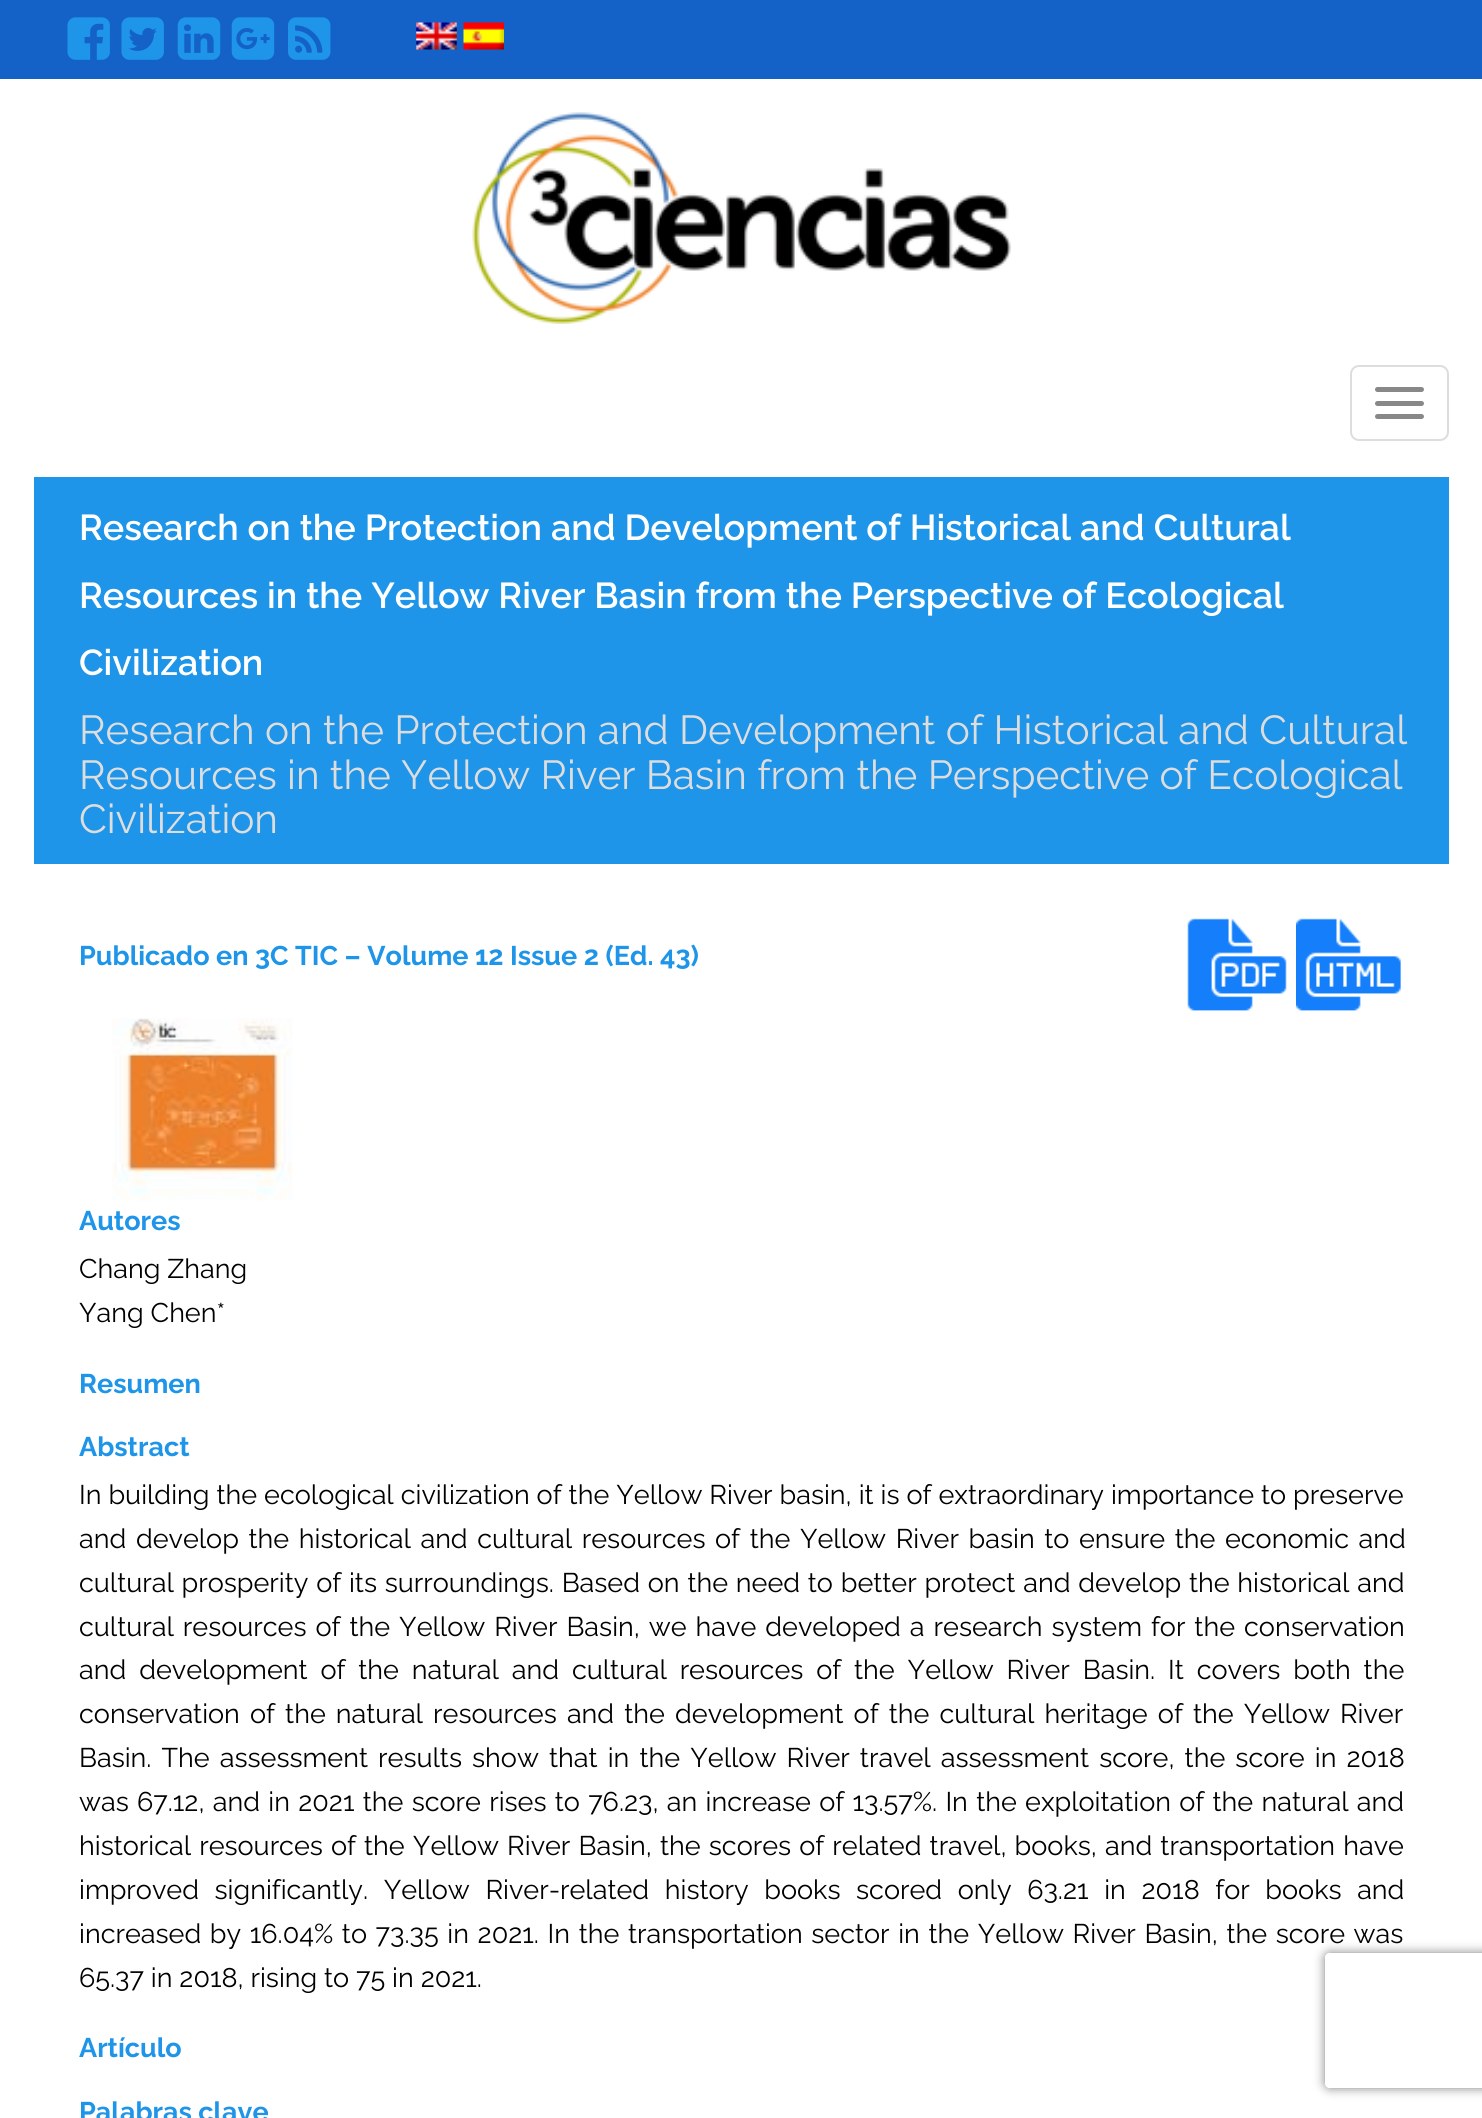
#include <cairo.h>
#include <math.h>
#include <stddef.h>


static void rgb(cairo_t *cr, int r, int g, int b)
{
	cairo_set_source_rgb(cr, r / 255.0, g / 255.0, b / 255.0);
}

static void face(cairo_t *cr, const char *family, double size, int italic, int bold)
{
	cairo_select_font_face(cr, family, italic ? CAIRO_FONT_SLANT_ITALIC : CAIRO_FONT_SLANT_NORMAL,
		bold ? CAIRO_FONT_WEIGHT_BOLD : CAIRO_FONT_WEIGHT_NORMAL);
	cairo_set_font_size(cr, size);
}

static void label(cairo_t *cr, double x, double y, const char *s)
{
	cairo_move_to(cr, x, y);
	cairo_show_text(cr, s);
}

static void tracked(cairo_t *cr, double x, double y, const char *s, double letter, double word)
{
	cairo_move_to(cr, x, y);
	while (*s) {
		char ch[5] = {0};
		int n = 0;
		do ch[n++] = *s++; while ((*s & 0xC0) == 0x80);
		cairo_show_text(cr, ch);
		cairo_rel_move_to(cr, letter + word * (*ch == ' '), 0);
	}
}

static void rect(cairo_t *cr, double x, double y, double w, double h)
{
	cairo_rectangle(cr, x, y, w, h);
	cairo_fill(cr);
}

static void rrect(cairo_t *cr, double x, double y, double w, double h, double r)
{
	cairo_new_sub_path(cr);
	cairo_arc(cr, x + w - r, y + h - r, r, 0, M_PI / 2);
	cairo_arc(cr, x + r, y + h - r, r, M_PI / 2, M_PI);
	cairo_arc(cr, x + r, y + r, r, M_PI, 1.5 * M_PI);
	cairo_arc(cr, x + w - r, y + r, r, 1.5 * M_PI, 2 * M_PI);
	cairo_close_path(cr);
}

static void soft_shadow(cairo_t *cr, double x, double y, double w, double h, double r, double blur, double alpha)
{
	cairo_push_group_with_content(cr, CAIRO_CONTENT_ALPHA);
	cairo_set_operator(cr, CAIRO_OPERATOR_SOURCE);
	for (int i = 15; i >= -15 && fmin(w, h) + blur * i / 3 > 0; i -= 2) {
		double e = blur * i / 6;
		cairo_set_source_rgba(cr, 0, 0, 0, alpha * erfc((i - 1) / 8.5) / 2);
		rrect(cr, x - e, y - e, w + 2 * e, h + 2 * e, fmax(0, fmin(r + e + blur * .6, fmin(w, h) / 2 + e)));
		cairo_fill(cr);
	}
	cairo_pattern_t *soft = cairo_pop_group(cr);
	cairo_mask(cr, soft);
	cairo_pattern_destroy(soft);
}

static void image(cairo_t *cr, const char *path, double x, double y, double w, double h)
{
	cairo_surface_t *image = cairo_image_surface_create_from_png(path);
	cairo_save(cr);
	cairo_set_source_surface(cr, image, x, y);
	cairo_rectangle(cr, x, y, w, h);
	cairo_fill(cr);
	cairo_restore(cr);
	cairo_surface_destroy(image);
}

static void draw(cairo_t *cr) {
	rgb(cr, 255, 255, 255);
	cairo_paint(cr);
	rgb(cr, 20, 98, 200);
	rect(cr, 0, 0, 1482, 79);
	image(cr, "image0.png", 67, 17, 43, 43);
	image(cr, "image1.png", 121, 17, 43, 43);
	image(cr, "image2.png", 177, 17, 44, 43);
	image(cr, "image3.png", 231, 17, 44, 43);
	image(cr, "image4.png", 288, 17, 43, 43);
	image(cr, "image5.png", 416, 22, 41, 28);
	image(cr, "image6.png", 463, 22, 41, 28);
	image(cr, "image7.png", 472, 112, 539, 212);
	rrect(cr, 1351, 366, 97, 74, 8);
	rgb(cr, 221, 221, 221);
	cairo_stroke(cr);
	rgb(cr, 136, 136, 136);
	rrect(cr, 1375, 387, 49, 5, 2.5);
	cairo_fill(cr);
	rrect(cr, 1375, 401, 49, 5, 2.5);
	cairo_fill(cr);
	rrect(cr, 1375, 414, 49, 5, 2.5);
	cairo_fill(cr);
	rgb(cr, 30, 149, 232);
	rect(cr, 34, 477, 1415, 387);
	face(cr, "Raleway SemiBold", 36, 0, 0);
	rgb(cr, 255, 255, 255);
	label(cr, 79, 540, "Research on the Protection and Development of Historical and Cultural");
	label(cr, 79, 608, "Resources in the Yellow River Basin from the Perspective of Ecological");
	label(cr, 79, 675, "Civilization");
	face(cr, "Raleway", 40.5, 0, 0);
	rgb(cr, 221, 221, 221);
	label(cr, 79, 744, "Research on the Protection and Development of Historical and Cultural");
	label(cr, 79, 789, "Resources in the Yellow River Basin from the Perspective of Ecological");
	label(cr, 79, 833, "Civilization");
	face(cr, "Raleway", 27, 0, 1);
	rgb(cr, 30, 149, 232);
	label(cr, 79, 965, "Publicado en 3C TIC – Volume 12 Issue 2 (Ed. 43)");
	image(cr, "image8.png", 1187, 918, 100, 93);
	image(cr, "image9.png", 1296, 918, 105, 93);
	image(cr, "image10.png", 112, 1018, 181, 183);
	label(cr, 79, 1230, "Autores");
	face(cr, "Raleway", 27, 0, 0);
	rgb(cr, 0, 0, 0);
	label(cr, 79, 1278, "Chang Zhang");
	label(cr, 79, 1322, "Yang Chen*");
	face(cr, "Raleway", 27, 0, 1);
	rgb(cr, 30, 149, 232);
	label(cr, 79, 1393, "Resumen");
	label(cr, 79, 1456, "Abstract");
	face(cr, "Raleway", 27, 0, 0);
	rgb(cr, 0, 0, 0);
	tracked(cr, 79, 1504, "In building the ecological civilization of the Yellow River basin, it is of extraordinary importance to preserve", 0, 0.1);
	tracked(cr, 79, 1548, "and develop the historical and cultural resources of the Yellow River basin to ensure the economic and", 0, 2.75);
	tracked(cr, 79, 1592, "cultural prosperity of its surroundings. Based on the need to better protect and develop the historical and", 0, 0.9);
	tracked(cr, 79, 1636, "cultural resources of the Yellow River Basin, we have developed a research system for the conservation", 0, 2.1);
	tracked(cr, 79, 1679, "and development of the natural and cultural resources of the Yellow River Basin. It covers both the", 0, 6);
	tracked(cr, 79, 1723, "conservation of the natural resources and the development of the cultural heritage of the Yellow River", 0, 3.25);
	tracked(cr, 79, 1767, "Basin. The assessment results show that in the Yellow River travel assessment score, the score in 2018", 0, 3.25);
	tracked(cr, 79, 1811, "was 67.12, and in 2021 the score rises to 76.23, an increase of 13.57%. In the exploitation of the natural and", 0, 1.4);
	tracked(cr, 79, 1855, "historical resources of the Yellow River Basin, the scores of related travel, books, and transportation have", 0, 1.25);
	tracked(cr, 79, 1899, "improved significantly. Yellow River-related history books scored only 63.21 in 2018 for books and", 0, 8.75);
	tracked(cr, 79, 1943, "increased by 16.04% to 73.35 in 2021. In the transportation sector in the Yellow River Basin, the score was", 0, 1.75);
	label(cr, 79, 1987, "65.37 in 2018, rising to 75 in 2021.");
	face(cr, "Raleway", 27, 0, 1);
	rgb(cr, 30, 149, 232);
	label(cr, 79, 2057, "Artículo");
	label(cr, 79, 2121, "Palabras clave");
	cairo_save(cr);
	cairo_set_fill_rule(cr, CAIRO_FILL_RULE_EVEN_ODD);
	cairo_new_path(cr);
	cairo_move_to(cr, 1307, 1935);
	cairo_line_to(cr, 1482, 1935);
	cairo_line_to(cr, 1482, 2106);
	cairo_line_to(cr, 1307, 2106);
	cairo_close_path(cr);
	cairo_move_to(cr, 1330, 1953);
	cairo_line_to(cr, 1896, 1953);
	cairo_curve_to(cr, 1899, 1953, 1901, 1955, 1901, 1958);
	cairo_line_to(cr, 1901, 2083);
	cairo_curve_to(cr, 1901, 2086, 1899, 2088, 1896, 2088);
	cairo_line_to(cr, 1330, 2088);
	cairo_curve_to(cr, 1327, 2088, 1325, 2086, 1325, 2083);
	cairo_line_to(cr, 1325, 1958);
	cairo_curve_to(cr, 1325, 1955, 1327, 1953, 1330, 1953);
	cairo_close_path(cr);
	cairo_clip(cr);
	rgb(cr, 128, 128, 128);
	soft_shadow(cr, 1325, 1953, 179, 135, 5, 5.5, 1);
	cairo_restore(cr);
}

int main(void) {
	cairo_surface_t *surface = cairo_image_surface_create(CAIRO_FORMAT_RGB24, 1482, 2118);
	cairo_t *cr = cairo_create(surface);
	cairo_font_options_t *options = cairo_font_options_create();
	cairo_font_options_set_hint_metrics(options, CAIRO_HINT_METRICS_OFF);
	cairo_font_options_set_hint_style(options, CAIRO_HINT_STYLE_NONE);
	cairo_set_font_options(cr, options);
	cairo_set_miter_limit(cr, 4);
	draw(cr);
	cairo_surface_write_to_png(surface, "render.png");
	cairo_font_options_destroy(options);
	cairo_destroy(cr);
	cairo_surface_destroy(surface);
	return 0;
}
